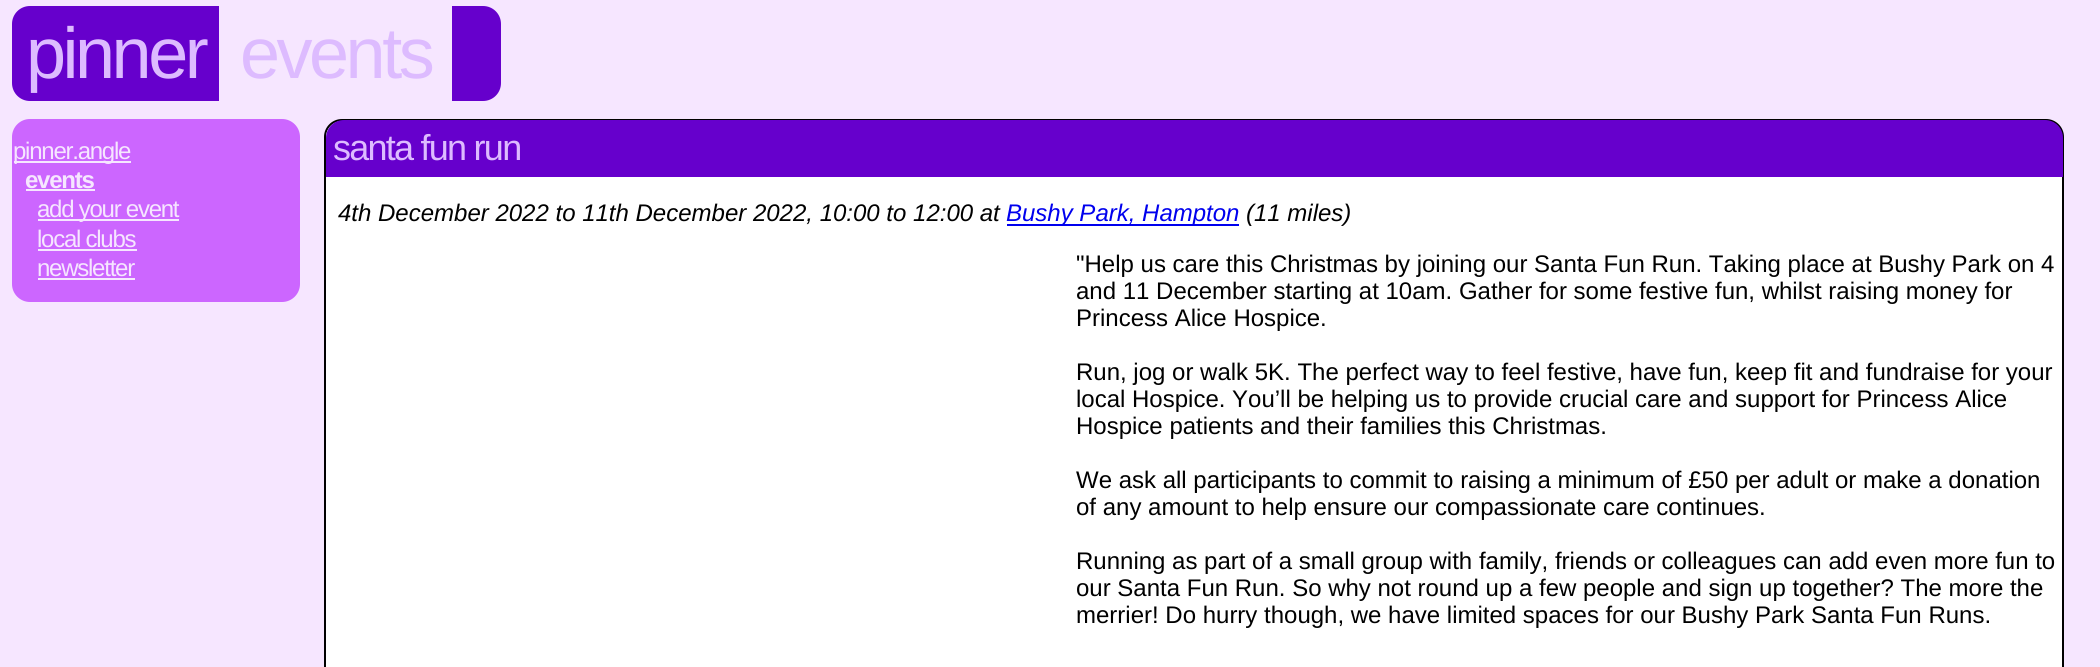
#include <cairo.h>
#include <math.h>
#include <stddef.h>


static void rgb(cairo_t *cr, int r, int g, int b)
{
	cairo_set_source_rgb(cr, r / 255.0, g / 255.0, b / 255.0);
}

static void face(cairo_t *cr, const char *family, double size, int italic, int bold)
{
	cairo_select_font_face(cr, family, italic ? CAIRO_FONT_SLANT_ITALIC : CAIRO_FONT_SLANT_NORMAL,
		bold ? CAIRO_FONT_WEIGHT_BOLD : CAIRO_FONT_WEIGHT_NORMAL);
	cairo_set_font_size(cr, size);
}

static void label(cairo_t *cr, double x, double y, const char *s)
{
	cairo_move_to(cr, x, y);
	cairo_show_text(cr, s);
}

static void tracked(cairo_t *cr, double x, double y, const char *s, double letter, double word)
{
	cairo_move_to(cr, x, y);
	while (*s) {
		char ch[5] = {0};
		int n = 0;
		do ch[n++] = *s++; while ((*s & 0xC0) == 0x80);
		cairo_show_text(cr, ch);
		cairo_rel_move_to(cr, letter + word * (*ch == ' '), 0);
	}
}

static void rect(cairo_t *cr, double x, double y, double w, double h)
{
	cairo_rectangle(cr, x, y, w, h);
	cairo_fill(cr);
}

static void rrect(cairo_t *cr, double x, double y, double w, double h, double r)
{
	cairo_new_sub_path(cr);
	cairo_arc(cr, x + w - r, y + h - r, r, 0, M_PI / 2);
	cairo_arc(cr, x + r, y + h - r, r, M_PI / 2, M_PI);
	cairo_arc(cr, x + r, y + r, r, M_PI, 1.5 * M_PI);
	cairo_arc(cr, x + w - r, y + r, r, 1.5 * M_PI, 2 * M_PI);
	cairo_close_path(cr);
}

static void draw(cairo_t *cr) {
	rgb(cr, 246, 230, 255);
	cairo_paint(cr);
	rgb(cr, 102, 0, 204);
	cairo_new_path(cr);
	cairo_move_to(cr, 30, 6);
	cairo_line_to(cr, 219, 6);
	cairo_line_to(cr, 219, 101);
	cairo_line_to(cr, 30, 101);
	cairo_curve_to(cr, 20, 101, 12, 93, 12, 83);
	cairo_line_to(cr, 12, 24);
	cairo_curve_to(cr, 12, 14, 20, 6, 30, 6);
	cairo_close_path(cr);
	cairo_fill(cr);
	face(cr, "Liberation Sans", 72, 0, 0);
	rgb(cr, 221, 187, 255);
	tracked(cr, 26, 78, "pinner", -3.5, 0);
	tracked(cr, 240, 78, "events", -3.5, 0);
	rgb(cr, 102, 0, 204);
	cairo_new_path(cr);
	cairo_move_to(cr, 452, 6);
	cairo_line_to(cr, 483, 6);
	cairo_curve_to(cr, 493, 6, 501, 14, 501, 24);
	cairo_line_to(cr, 501, 83);
	cairo_curve_to(cr, 501, 93, 493, 101, 483, 101);
	cairo_line_to(cr, 452, 101);
	cairo_close_path(cr);
	cairo_fill(cr);
	rgb(cr, 204, 102, 255);
	rrect(cr, 12, 119, 288, 183, 18);
	cairo_fill(cr);
	rgb(cr, 246, 230, 255);
	rect(cr, 14, 161, 117, 2);
	face(cr, "Liberation Sans", 24, 0, 0);
	tracked(cr, 13, 159, "pinner.angle", -1.25, 0);
	face(cr, "Liberation Sans", 24, 0, 1);
	tracked(cr, 25, 188, "events", -1.25, 0);
	rect(cr, 26, 189, 69, 2);
	rect(cr, 38, 219, 141, 2);
	face(cr, "Liberation Sans", 24, 0, 0);
	tracked(cr, 37, 217, "add your event", -1.25, 0);
	tracked(cr, 37, 247, "local clubs", -1.25, 0);
	rect(cr, 38, 249, 99, 2);
	tracked(cr, 37, 276, "newsletter", -1.25, 0);
	rect(cr, 38, 278, 97, 2);
	rgb(cr, 255, 255, 255);
	rrect(cr, 325, 120, 1738, 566, 17);
	cairo_fill_preserve(cr);
	rgb(cr, 0, 0, 0);
	cairo_stroke(cr);
	rgb(cr, 102, 0, 204);
	cairo_new_path(cr);
	cairo_move_to(cr, 344, 120);
	cairo_line_to(cr, 2045, 120);
	cairo_curve_to(cr, 2055, 120, 2063, 128, 2063, 138);
	cairo_line_to(cr, 2063, 177);
	cairo_line_to(cr, 326, 177);
	cairo_line_to(cr, 326, 138);
	cairo_curve_to(cr, 326, 128, 334, 120, 344, 120);
	cairo_close_path(cr);
	cairo_fill(cr);
	face(cr, "Liberation Sans", 36, 0, 0);
	rgb(cr, 221, 187, 255);
	tracked(cr, 333, 160, "santa fun run", -1.75, 0);
	face(cr, "Liberation Sans", 24, 1, 0);
	rgb(cr, 0, 0, 0);
	label(cr, 338, 221, "4th December 2022 to 11th December 2022, 10:00 to 12:00 at");
	rgb(cr, 0, 0, 238);
	rect(cr, 1007, 224, 232, 2);
	label(cr, 1006, 221, "Bushy Park, Hampton");
	rgb(cr, 0, 0, 0);
	label(cr, 1246, 221, "(11 miles)");
	face(cr, "Liberation Sans", 24, 0, 0);
	label(cr, 1076, 272, "\"Help us care this Christmas by joining our Santa Fun Run. Taking place at Bushy Park on 4");
	label(cr, 1076, 299, "and 11 December starting at 10am. Gather for some festive fun, whilst raising money for");
	label(cr, 1076, 326, "Princess Alice Hospice.");
	label(cr, 1076, 380, "Run, jog or walk 5K. The perfect way to feel festive, have fun, keep fit and fundraise for your");
	label(cr, 1076, 407, "local Hospice. You’ll be helping us to provide crucial care and support for Princess Alice");
	label(cr, 1076, 434, "Hospice patients and their families this Christmas.");
	label(cr, 1076, 488, "We ask all participants to commit to raising a minimum of £50 per adult or make a donation");
	label(cr, 1076, 515, "of any amount to help ensure our compassionate care continues.");
	label(cr, 1076, 569, "Running as part of a small group with family, friends or colleagues can add even more fun to");
	label(cr, 1076, 596, "our Santa Fun Run. So why not round up a few people and sign up together? The more the");
	label(cr, 1076, 623, "merrier! Do hurry though, we have limited spaces for our Bushy Park Santa Fun Runs.");
}

int main(void) {
	cairo_surface_t *surface = cairo_image_surface_create(CAIRO_FORMAT_RGB24, 2100, 667);
	cairo_t *cr = cairo_create(surface);
	cairo_font_options_t *options = cairo_font_options_create();
	cairo_font_options_set_hint_metrics(options, CAIRO_HINT_METRICS_OFF);
	cairo_font_options_set_hint_style(options, CAIRO_HINT_STYLE_NONE);
	cairo_set_font_options(cr, options);
	cairo_set_miter_limit(cr, 4);
	draw(cr);
	cairo_surface_write_to_png(surface, "render.png");
	cairo_font_options_destroy(options);
	cairo_destroy(cr);
	cairo_surface_destroy(surface);
	return 0;
}
